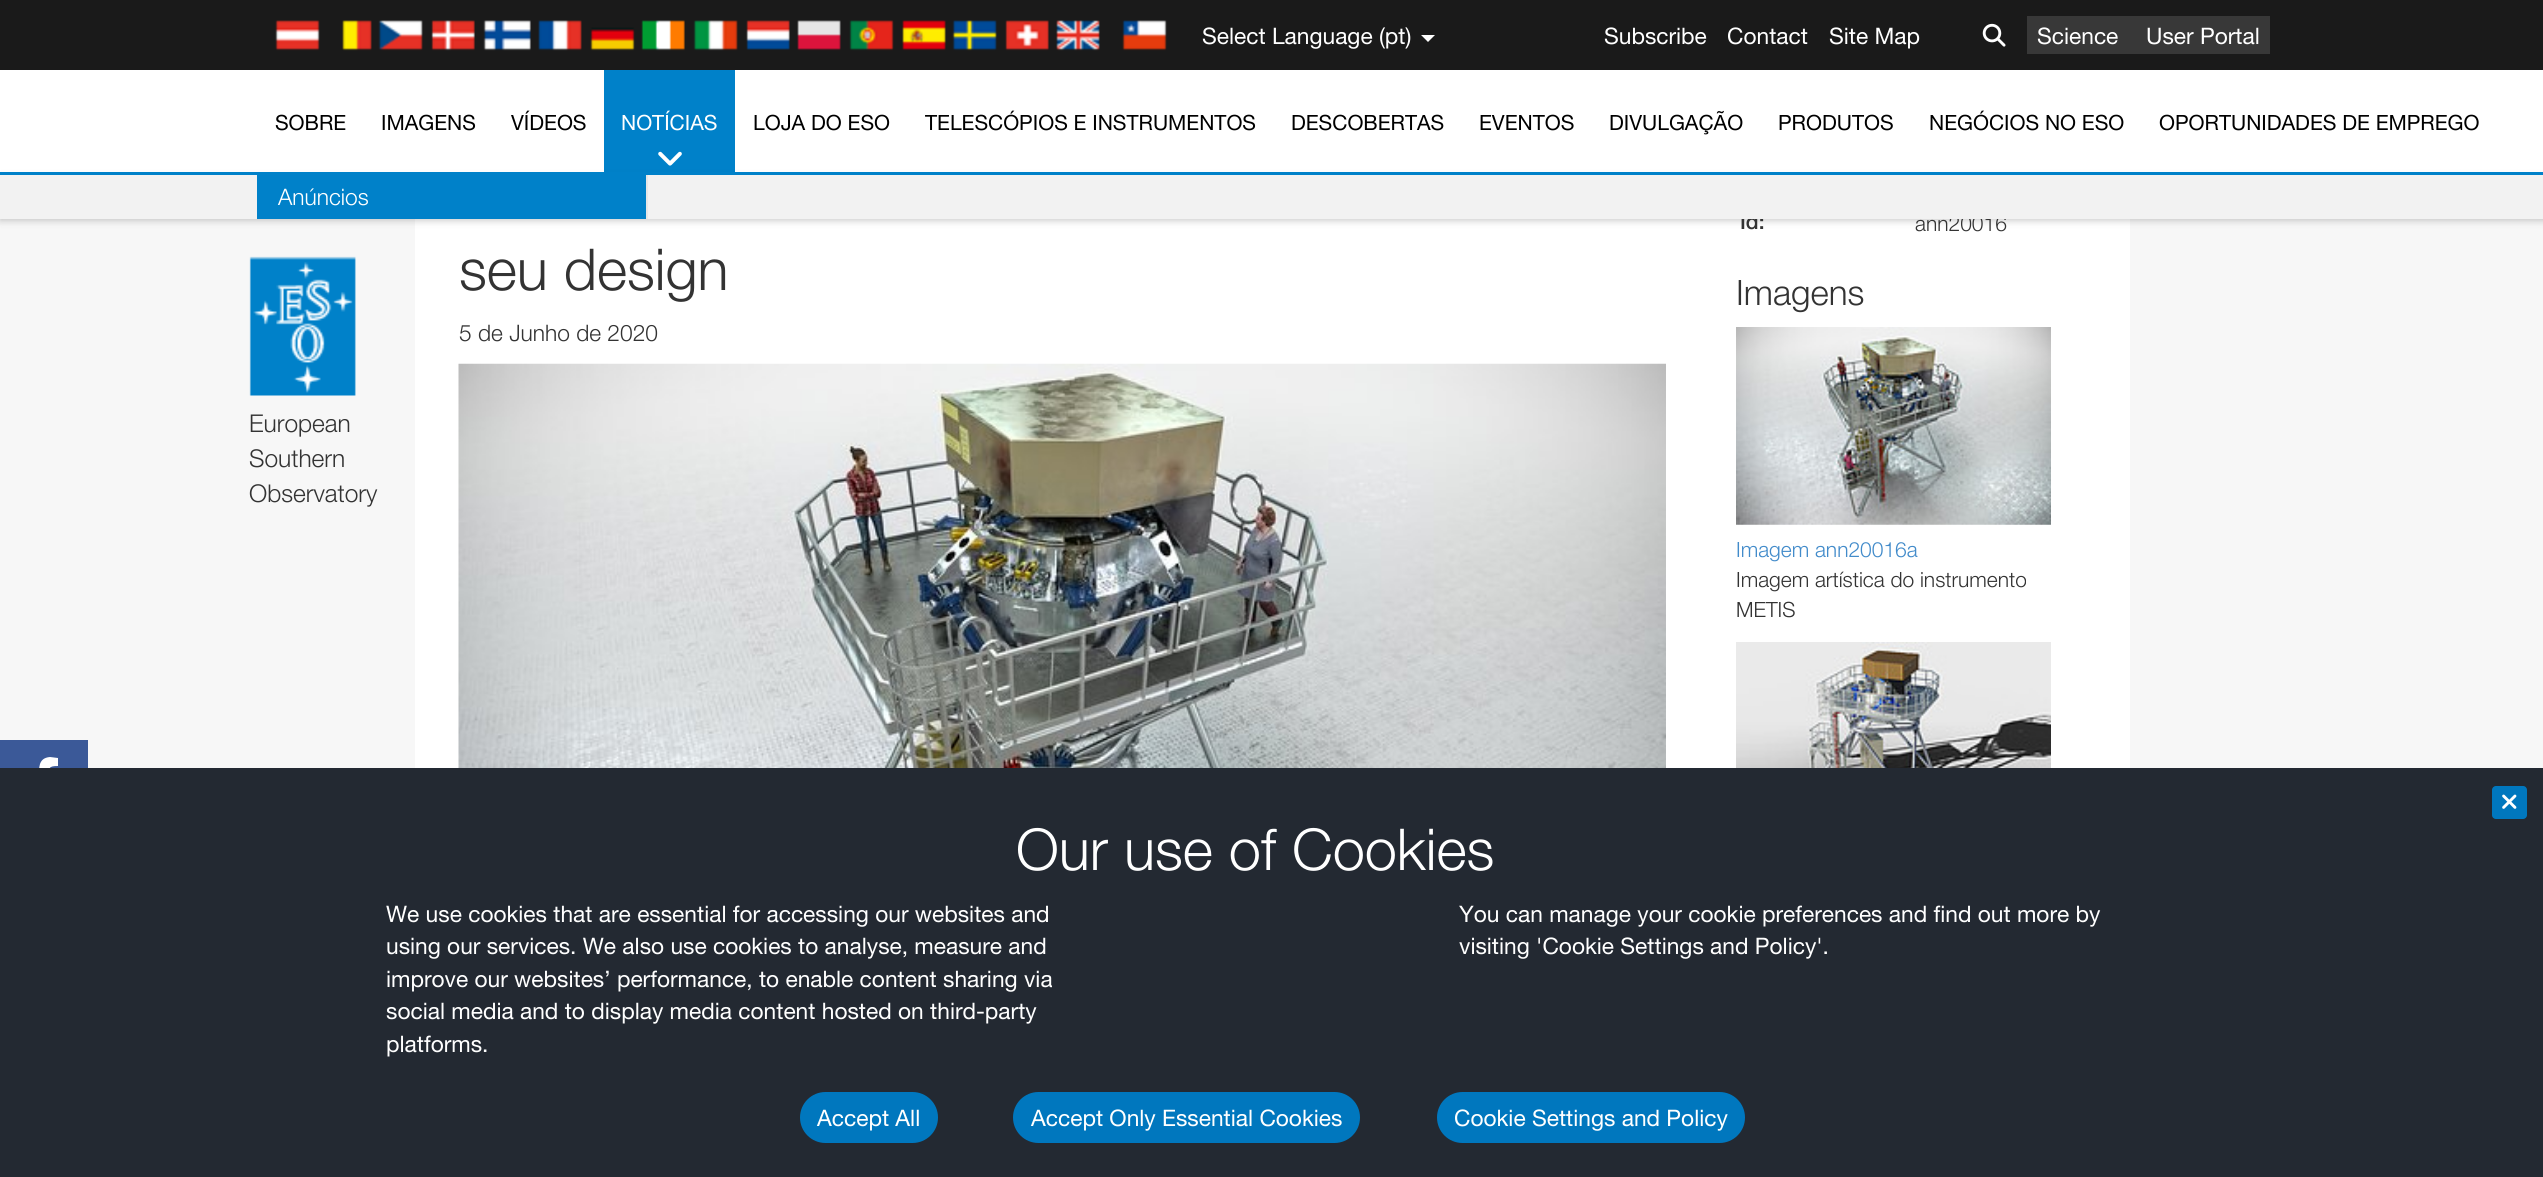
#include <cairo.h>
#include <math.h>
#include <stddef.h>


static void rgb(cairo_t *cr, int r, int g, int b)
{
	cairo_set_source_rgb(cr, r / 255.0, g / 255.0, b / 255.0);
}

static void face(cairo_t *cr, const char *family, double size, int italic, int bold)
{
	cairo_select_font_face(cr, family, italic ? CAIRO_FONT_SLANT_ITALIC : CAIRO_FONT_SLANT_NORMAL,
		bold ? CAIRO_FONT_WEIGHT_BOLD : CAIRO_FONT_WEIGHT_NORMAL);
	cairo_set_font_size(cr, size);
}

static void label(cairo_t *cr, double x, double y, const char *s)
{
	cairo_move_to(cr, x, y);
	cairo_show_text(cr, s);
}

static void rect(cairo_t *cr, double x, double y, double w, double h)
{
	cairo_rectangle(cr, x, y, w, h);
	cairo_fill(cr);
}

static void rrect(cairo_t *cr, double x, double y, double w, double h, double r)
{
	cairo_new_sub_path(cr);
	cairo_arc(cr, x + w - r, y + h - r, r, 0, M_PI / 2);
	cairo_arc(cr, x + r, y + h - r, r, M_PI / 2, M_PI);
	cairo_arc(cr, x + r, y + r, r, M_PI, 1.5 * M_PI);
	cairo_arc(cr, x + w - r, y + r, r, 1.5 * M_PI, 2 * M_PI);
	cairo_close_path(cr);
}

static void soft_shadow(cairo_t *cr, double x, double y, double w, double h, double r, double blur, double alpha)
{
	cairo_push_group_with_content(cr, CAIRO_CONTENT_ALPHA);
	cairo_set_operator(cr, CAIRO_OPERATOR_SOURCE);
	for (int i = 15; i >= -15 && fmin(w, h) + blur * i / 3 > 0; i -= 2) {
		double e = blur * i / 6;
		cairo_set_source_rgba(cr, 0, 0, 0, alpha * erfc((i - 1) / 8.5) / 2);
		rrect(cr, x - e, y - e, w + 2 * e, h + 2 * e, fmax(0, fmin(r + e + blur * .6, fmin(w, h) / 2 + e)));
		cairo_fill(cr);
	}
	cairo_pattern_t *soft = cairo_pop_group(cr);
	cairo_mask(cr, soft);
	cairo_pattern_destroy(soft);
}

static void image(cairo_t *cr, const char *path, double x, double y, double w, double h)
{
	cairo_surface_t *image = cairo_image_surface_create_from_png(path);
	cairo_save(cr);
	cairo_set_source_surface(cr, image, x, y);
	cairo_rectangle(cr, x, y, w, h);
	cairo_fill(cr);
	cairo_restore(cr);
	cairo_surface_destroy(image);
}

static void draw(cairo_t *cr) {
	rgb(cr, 247, 247, 247);
	cairo_paint(cr);
	rgb(cr, 26, 26, 26);
	rect(cr, 0, 0, 2543, 70);
	image(cr, "image0.png", 275, 20, 45, 31);
	image(cr, "image1.png", 342, 20, 30, 31);
	image(cr, "image2.png", 378, 20, 45, 31);
	image(cr, "image3.png", 431, 20, 44, 31);
	image(cr, "image4.png", 483, 20, 48, 31);
	image(cr, "image5.png", 538, 20, 44, 31);
	image(cr, "image6.png", 590, 27, 45, 24);
	image(cr, "image7.png", 641, 20, 44, 31);
	image(cr, "image8.png", 693, 20, 45, 31);
	image(cr, "image9.png", 746, 20, 44, 30);
	image(cr, "image10.png", 797, 20, 44, 31);
	image(cr, "image11.png", 849, 20, 45, 31);
	image(cr, "image12.png", 902, 20, 44, 31);
	image(cr, "image13.png", 952, 20, 45, 31);
	image(cr, "image14.png", 1005, 20, 44, 31);
	image(cr, "image15.png", 1056, 20, 44, 31);
	image(cr, "image16.png", 1122, 20, 45, 31);
	face(cr, "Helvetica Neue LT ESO", 22.75, 0, 0);
	rgb(cr, 255, 255, 255);
	label(cr, 1202, 44, "Select Language (pt)");
	cairo_new_path(cr);
	cairo_move_to(cr, 1421, 35);
	cairo_line_to(cr, 1435, 35);
	cairo_line_to(cr, 1428, 42);
	cairo_close_path(cr);
	cairo_fill(cr);
	label(cr, 1604, 44, "Subscribe");
	label(cr, 1727, 44, "Contact");
	label(cr, 1829, 44, "Site Map");
	image(cr, "image17.png", 1982, 23, 24, 24);
	rgb(cr, 56, 56, 56);
	rect(cr, 2027, 16, 243, 38);
	rgb(cr, 255, 255, 255);
	label(cr, 2037, 44, "Science");
	label(cr, 2146, 44, "User Portal");
	rect(cr, 0, 70, 2543, 102);
	rgb(cr, 0, 129, 201);
	rect(cr, 604, 70, 131, 102);
	face(cr, "Helvetica Neue LT ESO", 21, 0, 0);
	rgb(cr, 255, 255, 255);
	label(cr, 621, 130, "NOTÍCIAS");
	image(cr, "image18.png", 658, 151, 24, 15);
	rect(cr, 415, 219, 1715, 549);
	rgb(cr, 0, 0, 0);
	soft_shadow(cr, 0, 177, 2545, 44, 0, 3.5, 0.2);
	rgb(cr, 0, 129, 201);
	cairo_new_path(cr);
	cairo_move_to(cr, 0, 172);
	cairo_line_to(cr, 0, 175);
	cairo_line_to(cr, 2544, 175);
	cairo_line_to(cr, 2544, 215);
	cairo_line_to(cr, 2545, 215);
	cairo_line_to(cr, 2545, 172);
	cairo_close_path(cr);
	cairo_fill(cr);
	face(cr, "Helvetica Neue LT ESO Medium", 21, 0, 0);
	rgb(cr, 51, 51, 51);
	label(cr, 1740, 229, "Id:");
	face(cr, "Helvetica Neue LT ESO Light", 21, 0, 0);
	label(cr, 1915, 231, "ann20016");
	rgb(cr, 242, 242, 242);
	rect(cr, 0, 175, 2543, 44);
	rgb(cr, 231, 231, 231);
	rect(cr, 646, 175, 2, 44);
	rgb(cr, 0, 129, 201);
	rect(cr, 257, 175, 389, 44);
	face(cr, "Helvetica Neue LT ESO Light", 22.75, 0, 0);
	rgb(cr, 255, 255, 255);
	label(cr, 278, 205, "Anúncios");
	face(cr, "Helvetica Neue LT ESO", 21, 0, 0);
	rgb(cr, 0, 0, 0);
	label(cr, 275, 130, "SOBRE");
	label(cr, 381, 130, "IMAGENS");
	label(cr, 511, 130, "VÍDEOS");
	label(cr, 753, 130, "LOJA DO ESO");
	label(cr, 925, 130, "TELESCÓPIOS E INSTRUMENTOS");
	label(cr, 1291, 130, "DESCOBERTAS");
	label(cr, 1479, 130, "EVENTOS");
	label(cr, 1609, 130, "DIVULGAÇÃO");
	label(cr, 1778, 130, "PRODUTOS");
	label(cr, 1929, 130, "NEGÓCIOS NO ESO");
	label(cr, 2159, 130, "OPORTUNIDADES DE EMPREGO");
	rgb(cr, 59, 89, 152);
	rect(cr, 0, 740, 88, 28);
	rgb(cr, 255, 255, 255);
	cairo_new_path(cr);
	cairo_move_to(cr, 57, 787);
	cairo_line_to(cr, 58, 777);
	cairo_line_to(cr, 49, 777);
	cairo_curve_to(cr, 49, 768, 48, 766, 58, 766);
	cairo_line_to(cr, 58, 758);
	cairo_line_to(cr, 50, 757);
	cairo_curve_to(cr, 38, 758, 39, 768, 39, 777);
	cairo_line_to(cr, 30, 777);
	cairo_line_to(cr, 30, 787);
	cairo_line_to(cr, 39, 787);
	cairo_line_to(cr, 39, 810);
	cairo_line_to(cr, 49, 810);
	cairo_line_to(cr, 49, 787);
	cairo_close_path(cr);
	cairo_fill(cr);
	image(cr, "image19.png", 249, 256, 107, 140);
	face(cr, "Helvetica Neue LT ESO Light", 24.5, 0, 0);
	rgb(cr, 51, 51, 51);
	label(cr, 249, 432, "European");
	label(cr, 249, 467, "Southern");
	label(cr, 249, 502, "Observatory");
	face(cr, "Helvetica Neue LT ESO Light", 57.75, 0, 0);
	label(cr, 459, 290, "seu design");
	face(cr, "Helvetica Neue LT ESO Light", 22.75, 0, 0);
	label(cr, 459, 341, "5 de Junho de 2020");
	image(cr, "image20.png", 458, 363, 1208, 405);
	face(cr, "Helvetica Neue LT ESO Light", 35, 0, 0);
	label(cr, 1736, 305, "Imagens");
	image(cr, "image21.png", 1736, 327, 315, 198);
	face(cr, "Helvetica Neue LT ESO Light", 21, 0, 0);
	rgb(cr, 66, 139, 202);
	label(cr, 1736, 557, "Imagem ann20016a");
	rgb(cr, 51, 51, 51);
	label(cr, 1736, 587, "Imagem artística do instrumento");
	label(cr, 1736, 617, "METIS");
	image(cr, "image22.png", 1736, 642, 315, 126);
	rgb(cr, 35, 41, 50);
	rect(cr, 0, 768, 2543, 409);
	rgb(cr, 0, 119, 190);
	rrect(cr, 2492, 786, 35, 33, 4);
	cairo_fill(cr);
	image(cr, "image23.png", 2502, 794, 15, 15);
	face(cr, "Helvetica Neue LT ESO Light", 57.75, 0, 0);
	rgb(cr, 255, 255, 255);
	label(cr, 1016, 870, "Our use of Cookies");
	face(cr, "Helvetica Neue LT ESO", 22.75, 0, 0);
	label(cr, 386, 922, "We use cookies that are essential for accessing our websites and");
	label(cr, 386, 954, "using our services. We also use cookies to analyse, measure and");
	label(cr, 386, 987, "improve our websites’ performance, to enable content sharing via");
	label(cr, 386, 1019, "social media and to display media content hosted on third-party");
	label(cr, 386, 1052, "platforms.");
	label(cr, 1459, 922, "You can manage your cookie preferences and find out more by");
	label(cr, 1459, 954, "visiting 'Cookie Settings and Policy'.");
	rgb(cr, 0, 119, 190);
	rrect(cr, 800, 1092, 138, 51, 25.5);
	cairo_fill(cr);
	rgb(cr, 255, 255, 255);
	label(cr, 817, 1126, "Accept All");
	rgb(cr, 0, 119, 190);
	rrect(cr, 1013, 1092, 347, 51, 25.5);
	cairo_fill(cr);
	rgb(cr, 255, 255, 255);
	label(cr, 1031, 1126, "Accept Only Essential Cookies");
	rgb(cr, 0, 119, 190);
	rrect(cr, 1437, 1092, 308, 51, 25.5);
	cairo_fill(cr);
	rgb(cr, 255, 255, 255);
	label(cr, 1454, 1126, "Cookie Settings and Policy");
}

int main(void) {
	cairo_surface_t *surface = cairo_image_surface_create(CAIRO_FORMAT_RGB24, 2543, 1177);
	cairo_t *cr = cairo_create(surface);
	cairo_font_options_t *options = cairo_font_options_create();
	cairo_font_options_set_hint_metrics(options, CAIRO_HINT_METRICS_OFF);
	cairo_font_options_set_hint_style(options, CAIRO_HINT_STYLE_NONE);
	cairo_set_font_options(cr, options);
	cairo_set_miter_limit(cr, 4);
	draw(cr);
	cairo_surface_write_to_png(surface, "render.png");
	cairo_font_options_destroy(options);
	cairo_destroy(cr);
	cairo_surface_destroy(surface);
	return 0;
}
